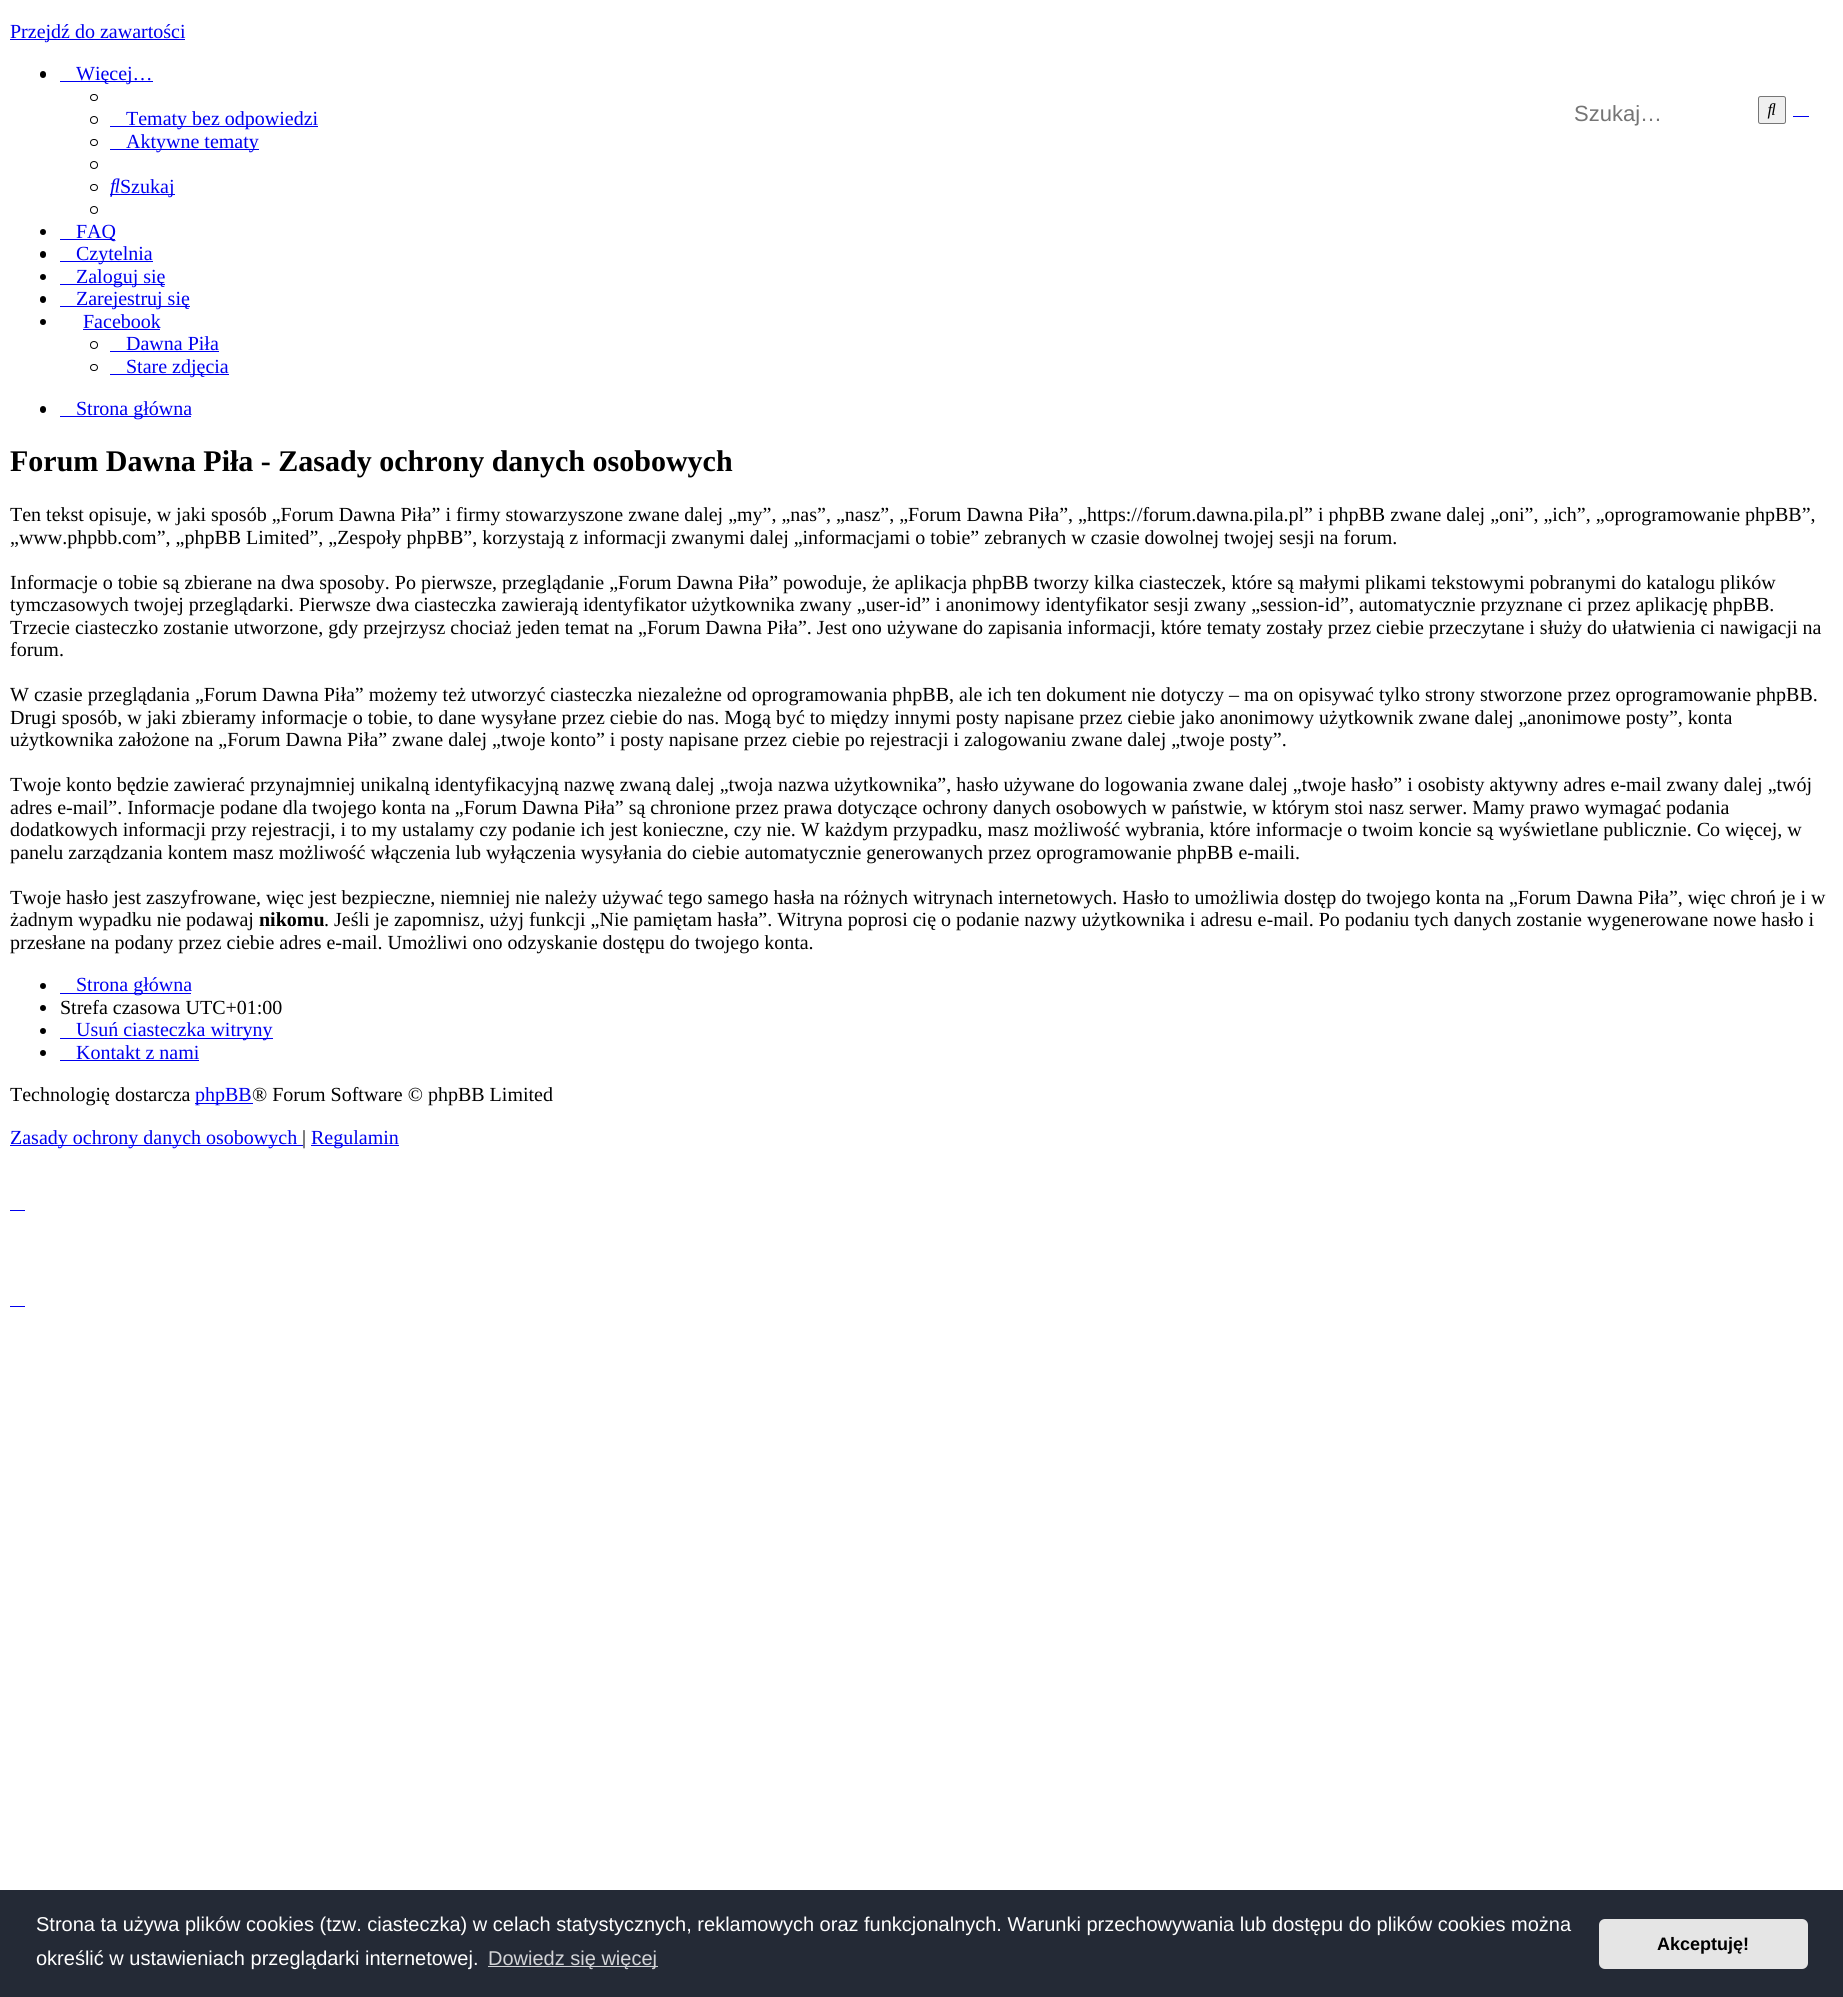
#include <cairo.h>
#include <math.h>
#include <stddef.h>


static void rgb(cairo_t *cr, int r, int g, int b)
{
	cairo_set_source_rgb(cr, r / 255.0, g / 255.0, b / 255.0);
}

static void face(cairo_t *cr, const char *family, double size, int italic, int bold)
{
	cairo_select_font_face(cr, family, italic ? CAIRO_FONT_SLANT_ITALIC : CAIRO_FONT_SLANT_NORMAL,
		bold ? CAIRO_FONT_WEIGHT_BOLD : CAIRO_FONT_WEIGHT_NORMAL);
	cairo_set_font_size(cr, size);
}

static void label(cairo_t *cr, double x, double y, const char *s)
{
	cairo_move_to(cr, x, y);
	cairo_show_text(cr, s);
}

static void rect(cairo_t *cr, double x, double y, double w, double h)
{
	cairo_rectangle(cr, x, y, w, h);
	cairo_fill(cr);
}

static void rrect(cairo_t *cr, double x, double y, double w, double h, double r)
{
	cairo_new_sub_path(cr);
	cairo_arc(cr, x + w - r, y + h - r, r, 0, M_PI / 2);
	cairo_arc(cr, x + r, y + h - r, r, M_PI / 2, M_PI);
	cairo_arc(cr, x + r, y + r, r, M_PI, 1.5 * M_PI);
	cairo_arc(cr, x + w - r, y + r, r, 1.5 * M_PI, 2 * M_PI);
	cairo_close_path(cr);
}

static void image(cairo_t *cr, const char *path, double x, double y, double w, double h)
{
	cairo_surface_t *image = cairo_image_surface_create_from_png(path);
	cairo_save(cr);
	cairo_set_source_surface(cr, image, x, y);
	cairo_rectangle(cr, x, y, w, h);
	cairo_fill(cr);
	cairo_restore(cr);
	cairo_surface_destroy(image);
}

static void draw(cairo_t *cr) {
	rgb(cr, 255, 255, 255);
	cairo_paint(cr);
	rgb(cr, 0, 0, 238);
	rect(cr, 10, 39, 175, 1);
	face(cr, "Liberation Serif", 20, 0, 0);
	label(cr, 10, 38, "Przejdź do zawartości");
	face(cr, "Liberation Sans", 22, 0, 0);
	rgb(cr, 117, 117, 117);
	label(cr, 1574, 121, "Szukaj…");
	rgb(cr, 239, 239, 239);
	rrect(cr, 1758.5, 96.5, 27, 27, 2);
	cairo_fill_preserve(cr);
	rgb(cr, 118, 118, 118);
	cairo_set_line_width(cr, 1);
	cairo_stroke(cr);
	image(cr, "image0.png", 1767, 103, 9, 16);
	rgb(cr, 0, 0, 238);
	rect(cr, 1793, 116, 16, 1);
	rgb(cr, 0, 0, 0);
	rrect(cr, 40, 71, 6, 7, 3);
	cairo_fill(cr);
	rgb(cr, 0, 0, 238);
	rect(cr, 60, 81, 93, 1);
	face(cr, "Liberation Serif", 20, 0, 0);
	label(cr, 76, 80, "Więcej…");
	rrect(cr, 90.5, 94.5, 7, 6, 3);
	rgb(cr, 0, 0, 0);
	cairo_stroke(cr);
	cairo_arc(cr, 94, 120, 3.5, 0, 2 * M_PI);
	cairo_stroke(cr);
	rgb(cr, 0, 0, 238);
	rect(cr, 110, 126, 208, 1);
	label(cr, 126, 125, "Tematy bez odpowiedzi");
	rrect(cr, 90.5, 139.5, 7, 6, 3);
	rgb(cr, 0, 0, 0);
	cairo_stroke(cr);
	rgb(cr, 0, 0, 238);
	rect(cr, 110, 149, 149, 1);
	label(cr, 126, 148, "Aktywne tematy");
	cairo_new_path(cr);
	cairo_arc(cr, 94, 165, 3.5, 0, 2 * M_PI);
	rgb(cr, 0, 0, 0);
	cairo_stroke(cr);
	rrect(cr, 90.5, 184.5, 7, 6, 3);
	cairo_stroke(cr);
	rgb(cr, 0, 0, 238);
	rect(cr, 110, 194, 65, 1);
	image(cr, "image1.png", 110, 178, 10, 19);
	label(cr, 120, 193, "Szukaj");
	cairo_new_path(cr);
	cairo_arc(cr, 94, 210, 3.5, 0, 2 * M_PI);
	rgb(cr, 0, 0, 0);
	cairo_stroke(cr);
	cairo_arc(cr, 43, 232, 3, 0, 2 * M_PI);
	cairo_fill(cr);
	rgb(cr, 0, 0, 238);
	rect(cr, 60, 239, 55, 1);
	label(cr, 76, 238, "FAQ");
	rgb(cr, 0, 0, 0);
	rrect(cr, 40, 251, 6, 7, 3);
	cairo_fill(cr);
	rgb(cr, 0, 0, 238);
	rect(cr, 60, 261, 93, 1);
	label(cr, 76, 260, "Czytelnia");
	rgb(cr, 0, 0, 0);
	cairo_new_path(cr);
	cairo_arc(cr, 43, 277, 3, 0, 2 * M_PI);
	cairo_fill(cr);
	rgb(cr, 0, 0, 238);
	rect(cr, 60, 284, 105, 1);
	label(cr, 76, 283, "Zaloguj się");
	rgb(cr, 0, 0, 0);
	rrect(cr, 40, 296, 6, 7, 3);
	cairo_fill(cr);
	rgb(cr, 0, 0, 238);
	rect(cr, 60, 306, 130, 1);
	label(cr, 76, 305, "Zarejestruj się");
	rgb(cr, 0, 0, 0);
	cairo_new_path(cr);
	cairo_arc(cr, 43, 322, 3, 0, 2 * M_PI);
	cairo_fill(cr);
	rgb(cr, 0, 0, 238);
	label(cr, 83, 328, "Facebook");
	rect(cr, 83, 329, 77, 1);
	cairo_new_path(cr);
	cairo_arc(cr, 94, 345, 3.5, 0, 2 * M_PI);
	rgb(cr, 0, 0, 0);
	cairo_stroke(cr);
	rgb(cr, 0, 0, 238);
	label(cr, 126, 350, "Dawna Piła");
	rect(cr, 110, 351, 109, 1);
	rrect(cr, 90.5, 364.5, 7, 6, 3);
	rgb(cr, 0, 0, 0);
	cairo_stroke(cr);
	rgb(cr, 0, 0, 238);
	rect(cr, 110, 374, 119, 1);
	label(cr, 126, 373, "Stare zdjęcia");
	rgb(cr, 0, 0, 0);
	rrect(cr, 40, 406, 6, 7, 3);
	cairo_fill(cr);
	rgb(cr, 0, 0, 238);
	rect(cr, 60, 416, 131, 1);
	label(cr, 76, 415, "Strona główna");
	face(cr, "Liberation Serif", 30, 0, 1);
	rgb(cr, 0, 0, 0);
	label(cr, 10, 471, "Forum Dawna Piła - Zasady ochrony danych osobowych");
	face(cr, "Liberation Serif", 20, 0, 0);
	label(cr, 10, 521, "Ten tekst opisuje, w jaki sposób „Forum Dawna Piła” i firmy stowarzyszone zwane dalej „my”, „nas”, „nasz”, „Forum Dawna Piła”, „https://forum.dawna.pila.pl” i phpBB zwane dalej „oni”, „ich”, „oprogramowanie phpBB”,");
	label(cr, 10, 544, "„www.phpbb.com”, „phpBB Limited”, „Zespoły phpBB”, korzystają z informacji zwanymi dalej „informacjami o tobie” zebranych w czasie dowolnej twojej sesji na forum.");
	label(cr, 10, 589, "Informacje o tobie są zbierane na dwa sposoby. Po pierwsze, przeglądanie „Forum Dawna Piła” powoduje, że aplikacja phpBB tworzy kilka ciasteczek, które są małymi plikami tekstowymi pobranymi do katalogu plików");
	label(cr, 10, 611, "tymczasowych twojej przeglądarki. Pierwsze dwa ciasteczka zawierają identyfikator użytkownika zwany „user-id” i anonimowy identyfikator sesji zwany „session-id”, automatycznie przyznane ci przez aplikację phpBB.");
	label(cr, 10, 634, "Trzecie ciasteczko zostanie utworzone, gdy przejrzysz chociaż jeden temat na „Forum Dawna Piła”. Jest ono używane do zapisania informacji, które tematy zostały przez ciebie przeczytane i służy do ułatwienia ci nawigacji na");
	label(cr, 10, 656, "forum.");
	label(cr, 10, 701, "W czasie przeglądania „Forum Dawna Piła” możemy też utworzyć ciasteczka niezależne od oprogramowania phpBB, ale ich ten dokument nie dotyczy – ma on opisywać tylko strony stworzone przez oprogramowanie phpBB.");
	label(cr, 10, 724, "Drugi sposób, w jaki zbieramy informacje o tobie, to dane wysyłane przez ciebie do nas. Mogą być to między innymi posty napisane przez ciebie jako anonimowy użytkownik zwane dalej „anonimowe posty”, konta");
	label(cr, 10, 746, "użytkownika założone na „Forum Dawna Piła” zwane dalej „twoje konto” i posty napisane przez ciebie po rejestracji i zalogowaniu zwane dalej „twoje posty”.");
	label(cr, 10, 791, "Twoje konto będzie zawierać przynajmniej unikalną identyfikacyjną nazwę zwaną dalej „twoja nazwa użytkownika”, hasło używane do logowania zwane dalej „twoje hasło” i osobisty aktywny adres e-mail zwany dalej „twój");
	label(cr, 10, 814, "adres e-mail”. Informacje podane dla twojego konta na „Forum Dawna Piła” są chronione przez prawa dotyczące ochrony danych osobowych w państwie, w którym stoi nasz serwer. Mamy prawo wymagać podania");
	label(cr, 10, 836, "dodatkowych informacji przy rejestracji, i to my ustalamy czy podanie ich jest konieczne, czy nie. W każdym przypadku, masz możliwość wybrania, które informacje o twoim koncie są wyświetlane publicznie. Co więcej, w");
	label(cr, 10, 859, "panelu zarządzania kontem masz możliwość włączenia lub wyłączenia wysyłania do ciebie automatycznie generowanych przez oprogramowanie phpBB e-maili.");
	label(cr, 10, 904, "Twoje hasło jest zaszyfrowane, więc jest bezpieczne, niemniej nie należy używać tego samego hasła na różnych witrynach internetowych. Hasło to umożliwia dostęp do twojego konta na „Forum Dawna Piła”, więc chroń je i w");
	label(cr, 10, 926, "żadnym wypadku nie podawaj");
	face(cr, "Liberation Serif", 20, 0, 1);
	label(cr, 259, 926, "nikomu");
	face(cr, "Liberation Serif", 20, 0, 0);
	label(cr, 324, 926, ". Jeśli je zapomnisz, użyj funkcji „Nie pamiętam hasła”. Witryna poprosi cię o podanie nazwy użytkownika i adresu e-mail. Po podaniu tych danych zostanie wygenerowane nowe hasło i");
	label(cr, 10, 949, "przesłane na podany przez ciebie adres e-mail. Umożliwi ono odzyskanie dostępu do twojego konta.");
	cairo_new_path(cr);
	cairo_arc(cr, 43, 986, 3, 0, 2 * M_PI);
	cairo_fill(cr);
	rgb(cr, 0, 0, 238);
	rect(cr, 60, 993, 131, 1);
	label(cr, 76, 991, "Strona główna");
	rgb(cr, 0, 0, 0);
	cairo_new_path(cr);
	cairo_arc(cr, 43, 1008, 3, 0, 2 * M_PI);
	cairo_fill(cr);
	label(cr, 60, 1014, "Strefa czasowa UTC+01:00");
	cairo_new_path(cr);
	cairo_arc(cr, 43, 1031, 3, 0, 2 * M_PI);
	cairo_fill(cr);
	rgb(cr, 0, 0, 238);
	rect(cr, 60, 1038, 213, 1);
	label(cr, 76, 1036, "Usuń ciasteczka witryny");
	rgb(cr, 0, 0, 0);
	cairo_new_path(cr);
	cairo_arc(cr, 43, 1053, 3, 0, 2 * M_PI);
	cairo_fill(cr);
	rgb(cr, 0, 0, 238);
	label(cr, 76, 1059, "Kontakt z nami");
	rect(cr, 60, 1060, 139, 1);
	rgb(cr, 0, 0, 0);
	label(cr, 10, 1101, "Technologię dostarcza");
	rgb(cr, 0, 0, 238);
	rect(cr, 195, 1103, 58, 1);
	label(cr, 195, 1101, "phpBB");
	rgb(cr, 0, 0, 0);
	label(cr, 252, 1101, "® Forum Software © phpBB Limited");
	rgb(cr, 0, 0, 238);
	rect(cr, 10, 1145, 293, 1);
	label(cr, 10, 1144, "Zasady ochrony danych osobowych");
	rgb(cr, 0, 0, 0);
	label(cr, 302, 1144, "|");
	rgb(cr, 0, 0, 238);
	rect(cr, 311, 1145, 88, 1);
	label(cr, 311, 1144, "Regulamin");
	rect(cr, 10, 1210, 15, 1);
	rect(cr, 10, 1306, 15, 1);
	rgb(cr, 36, 42, 54);
	rect(cr, 0, 1890, 1843, 107);
	face(cr, "Liberation Sans", 20, 0, 0);
	rgb(cr, 255, 255, 255);
	label(cr, 36, 1931, "Strona ta używa plików cookies (tzw. ciasteczka) w celach statystycznych, reklamowych oraz funkcjonalnych. Warunki przechowywania lub dostępu do plików cookies można");
	label(cr, 36, 1965, "określić w ustawieniach przeglądarki internetowej.");
	rgb(cr, 211, 212, 215);
	rect(cr, 488, 1966, 170, 1);
	label(cr, 488, 1965, "Dowiedz się więcej");
	rgb(cr, 229, 229, 229);
	rrect(cr, 1599, 1919, 209, 50, 6);
	cairo_fill(cr);
	face(cr, "Liberation Sans", 18, 0, 1);
	rgb(cr, 0, 0, 0);
	label(cr, 1657, 1950, "Akceptuję!");
}

int main(void) {
	cairo_surface_t *surface = cairo_image_surface_create(CAIRO_FORMAT_RGB24, 1843, 1997);
	cairo_t *cr = cairo_create(surface);
	cairo_font_options_t *options = cairo_font_options_create();
	cairo_font_options_set_hint_metrics(options, CAIRO_HINT_METRICS_OFF);
	cairo_font_options_set_hint_style(options, CAIRO_HINT_STYLE_NONE);
	cairo_set_font_options(cr, options);
	cairo_set_miter_limit(cr, 4);
	draw(cr);
	cairo_surface_write_to_png(surface, "render.png");
	cairo_font_options_destroy(options);
	cairo_destroy(cr);
	cairo_surface_destroy(surface);
	return 0;
}
